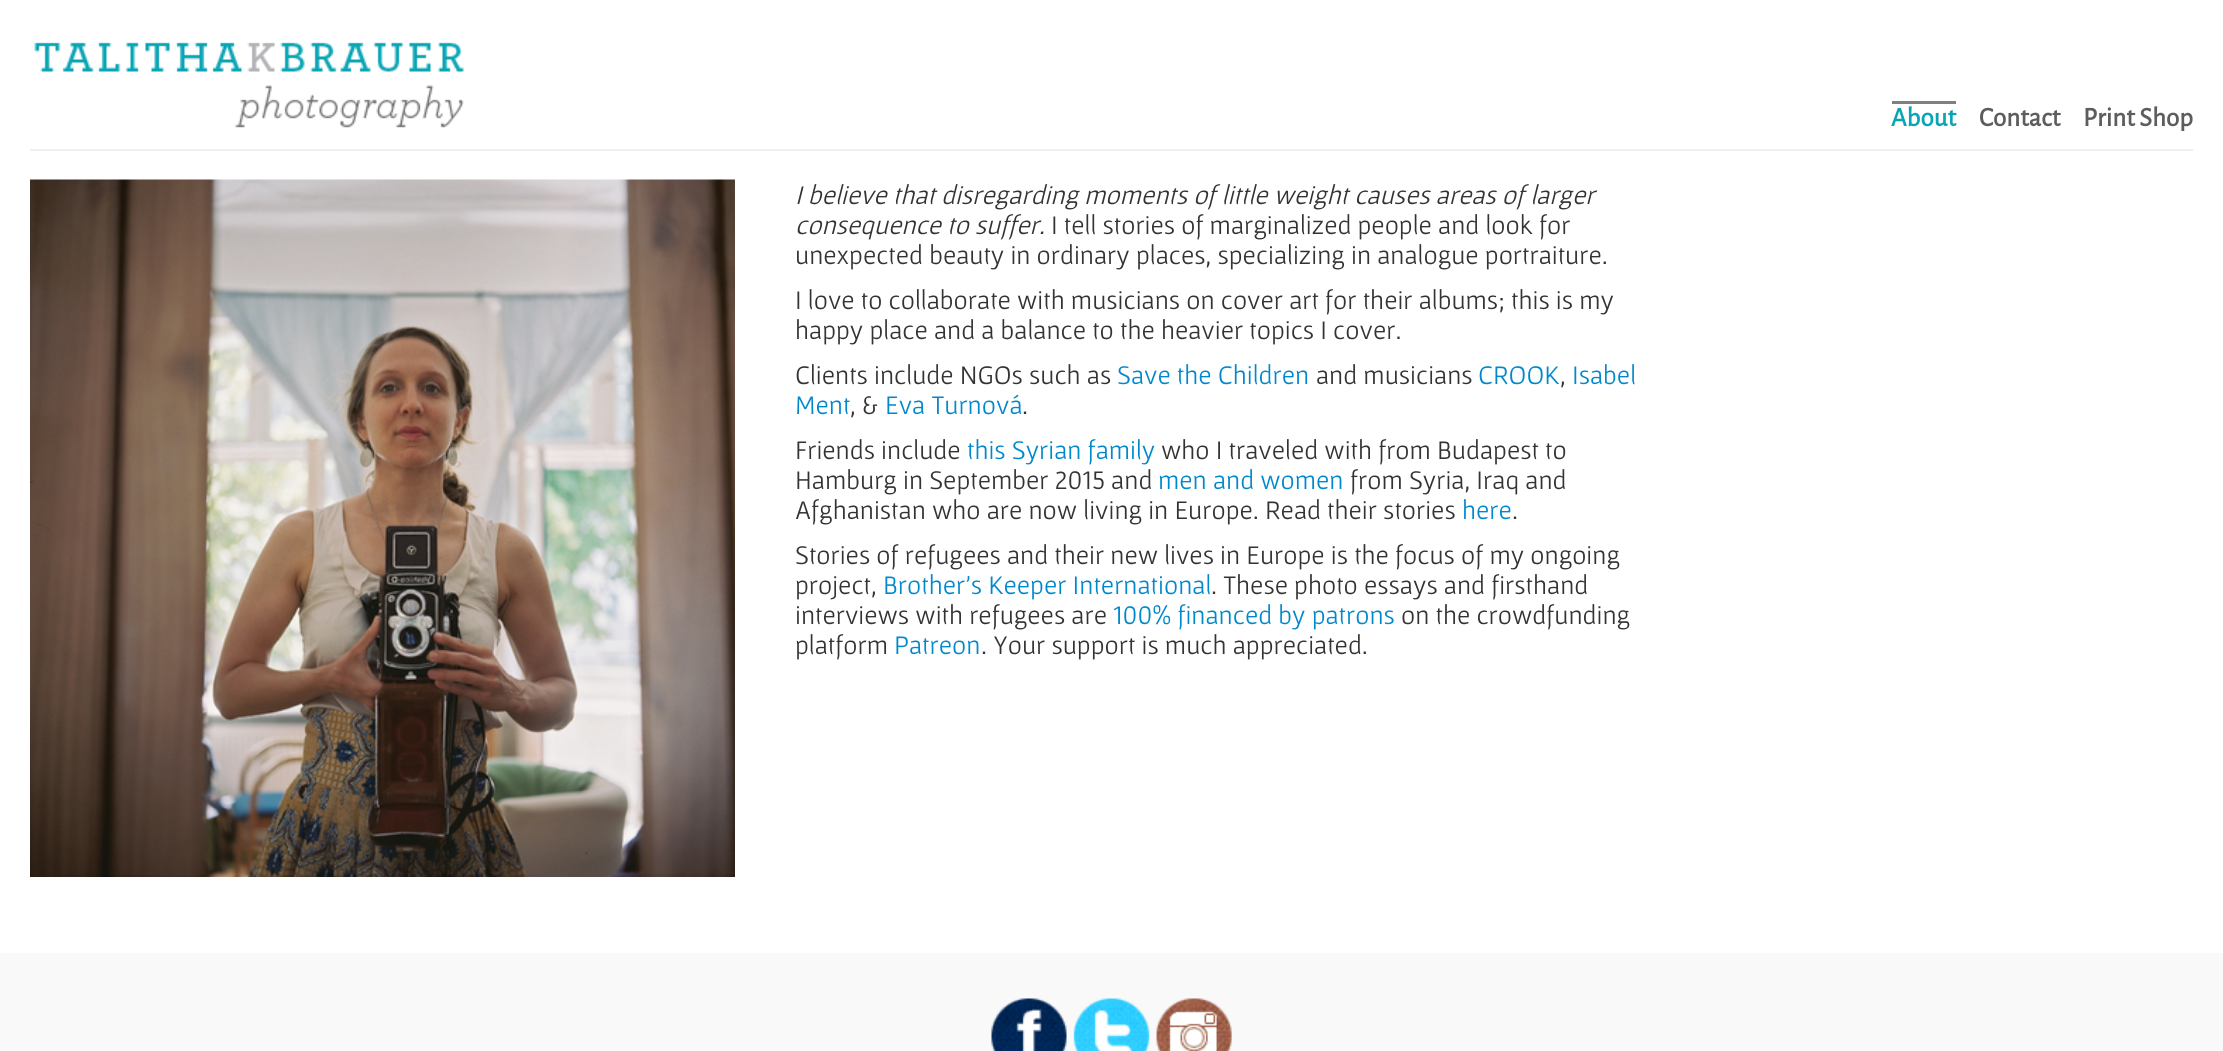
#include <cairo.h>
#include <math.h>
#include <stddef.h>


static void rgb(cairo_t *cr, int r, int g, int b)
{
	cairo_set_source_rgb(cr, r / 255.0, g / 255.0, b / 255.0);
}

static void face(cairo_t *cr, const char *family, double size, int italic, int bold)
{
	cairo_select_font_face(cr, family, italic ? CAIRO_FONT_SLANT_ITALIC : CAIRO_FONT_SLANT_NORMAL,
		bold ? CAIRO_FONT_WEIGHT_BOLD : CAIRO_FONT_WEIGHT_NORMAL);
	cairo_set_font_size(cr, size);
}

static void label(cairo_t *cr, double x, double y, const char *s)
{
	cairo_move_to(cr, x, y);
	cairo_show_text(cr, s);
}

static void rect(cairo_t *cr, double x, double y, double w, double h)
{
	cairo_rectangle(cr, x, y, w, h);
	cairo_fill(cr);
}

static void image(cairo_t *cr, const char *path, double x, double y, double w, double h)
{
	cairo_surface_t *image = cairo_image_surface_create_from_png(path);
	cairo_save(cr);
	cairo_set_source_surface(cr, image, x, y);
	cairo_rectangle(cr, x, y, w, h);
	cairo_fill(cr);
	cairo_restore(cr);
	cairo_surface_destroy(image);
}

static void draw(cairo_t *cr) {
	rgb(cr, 255, 255, 255);
	cairo_paint(cr);
	rgb(cr, 239, 239, 239);
	rect(cr, 30, 149, 2163, 2);
	image(cr, "image0.png", 34, 42, 430, 86);
	rgb(cr, 128, 128, 128);
	rect(cr, 1892, 101, 64, 3);
	face(cr, "Alegreya Sans", 27, 0, 1);
	rgb(cr, 10, 165, 181);
	label(cr, 1891, 126, "About");
	rgb(cr, 94, 93, 93);
	label(cr, 1979, 126, "Contact");
	label(cr, 2083, 126, "Print Shop");
	image(cr, "image1.png", 30, 179, 705, 698);
	face(cr, "Gafata", 27, 1, 0);
	rgb(cr, 51, 51, 51);
	label(cr, 795, 204, "I believe that disregarding moments of little weight causes areas of larger");
	label(cr, 795, 234, "consequence to suffer.");
	face(cr, "Gafata", 27, 0, 0);
	label(cr, 1051, 234, "I tell stories of marginalized people and look for");
	label(cr, 795, 264, "unexpected beauty in ordinary places, specializing in analogue portraiture.");
	label(cr, 795, 309, "I love to collaborate with musicians on cover art for their albums; this is my");
	label(cr, 795, 339, "happy place and a balance to the heavier topics I cover.");
	label(cr, 795, 384, "Clients include NGOs such as");
	rgb(cr, 0, 136, 204);
	label(cr, 1117, 384, "Save the Children");
	rgb(cr, 51, 51, 51);
	label(cr, 1316, 384, "and musicians");
	rgb(cr, 0, 136, 204);
	label(cr, 1478, 384, "CROOK");
	rgb(cr, 51, 51, 51);
	label(cr, 1560, 384, ",");
	rgb(cr, 0, 136, 204);
	label(cr, 1572, 384, "Isabel");
	label(cr, 795, 414, "Ment");
	rgb(cr, 51, 51, 51);
	label(cr, 850, 414, ", &");
	rgb(cr, 0, 136, 204);
	label(cr, 885, 414, "Eva Turnová");
	rgb(cr, 51, 51, 51);
	label(cr, 1022, 414, ".");
	label(cr, 795, 459, "Friends include");
	rgb(cr, 0, 136, 204);
	label(cr, 967, 459, "this Syrian family");
	rgb(cr, 51, 51, 51);
	label(cr, 1161, 459, "who I traveled with from Budapest to");
	label(cr, 795, 489, "Hamburg in September 2015 and");
	rgb(cr, 0, 136, 204);
	label(cr, 1158, 489, "men and women");
	rgb(cr, 51, 51, 51);
	label(cr, 1350, 489, "from Syria, Iraq and");
	label(cr, 795, 519, "Afghanistan who are now living in Europe. Read their stories");
	rgb(cr, 0, 136, 204);
	label(cr, 1462, 519, "here");
	rgb(cr, 51, 51, 51);
	label(cr, 1512, 519, ".");
	label(cr, 795, 564, "Stories of refugees and their new lives in Europe is the focus of my ongoing");
	label(cr, 795, 594, "project,");
	rgb(cr, 0, 136, 204);
	label(cr, 883, 594, "Brother's Keeper International");
	rgb(cr, 51, 51, 51);
	label(cr, 1211, 594, ". These photo essays and firsthand");
	label(cr, 795, 624, "interviews with refugees are");
	rgb(cr, 0, 136, 204);
	label(cr, 1113, 624, "100% financed by patrons");
	rgb(cr, 51, 51, 51);
	label(cr, 1401, 624, "on the crowdfunding");
	label(cr, 795, 654, "platform");
	rgb(cr, 0, 136, 204);
	label(cr, 894, 654, "Patreon");
	rgb(cr, 51, 51, 51);
	label(cr, 981, 654, ". Your support is much appreciated.");
	rgb(cr, 249, 249, 249);
	rect(cr, 0, 953, 2223, 98);
	image(cr, "image2.png", 991, 998, 76, 53);
	image(cr, "image3.png", 1073, 998, 77, 53);
	image(cr, "image4.png", 1156, 998, 76, 53);
}

int main(void) {
	cairo_surface_t *surface = cairo_image_surface_create(CAIRO_FORMAT_RGB24, 2223, 1051);
	cairo_t *cr = cairo_create(surface);
	cairo_font_options_t *options = cairo_font_options_create();
	cairo_font_options_set_hint_metrics(options, CAIRO_HINT_METRICS_OFF);
	cairo_font_options_set_hint_style(options, CAIRO_HINT_STYLE_NONE);
	cairo_set_font_options(cr, options);
	cairo_set_miter_limit(cr, 4);
	draw(cr);
	cairo_surface_write_to_png(surface, "render.png");
	cairo_font_options_destroy(options);
	cairo_destroy(cr);
	cairo_surface_destroy(surface);
	return 0;
}
